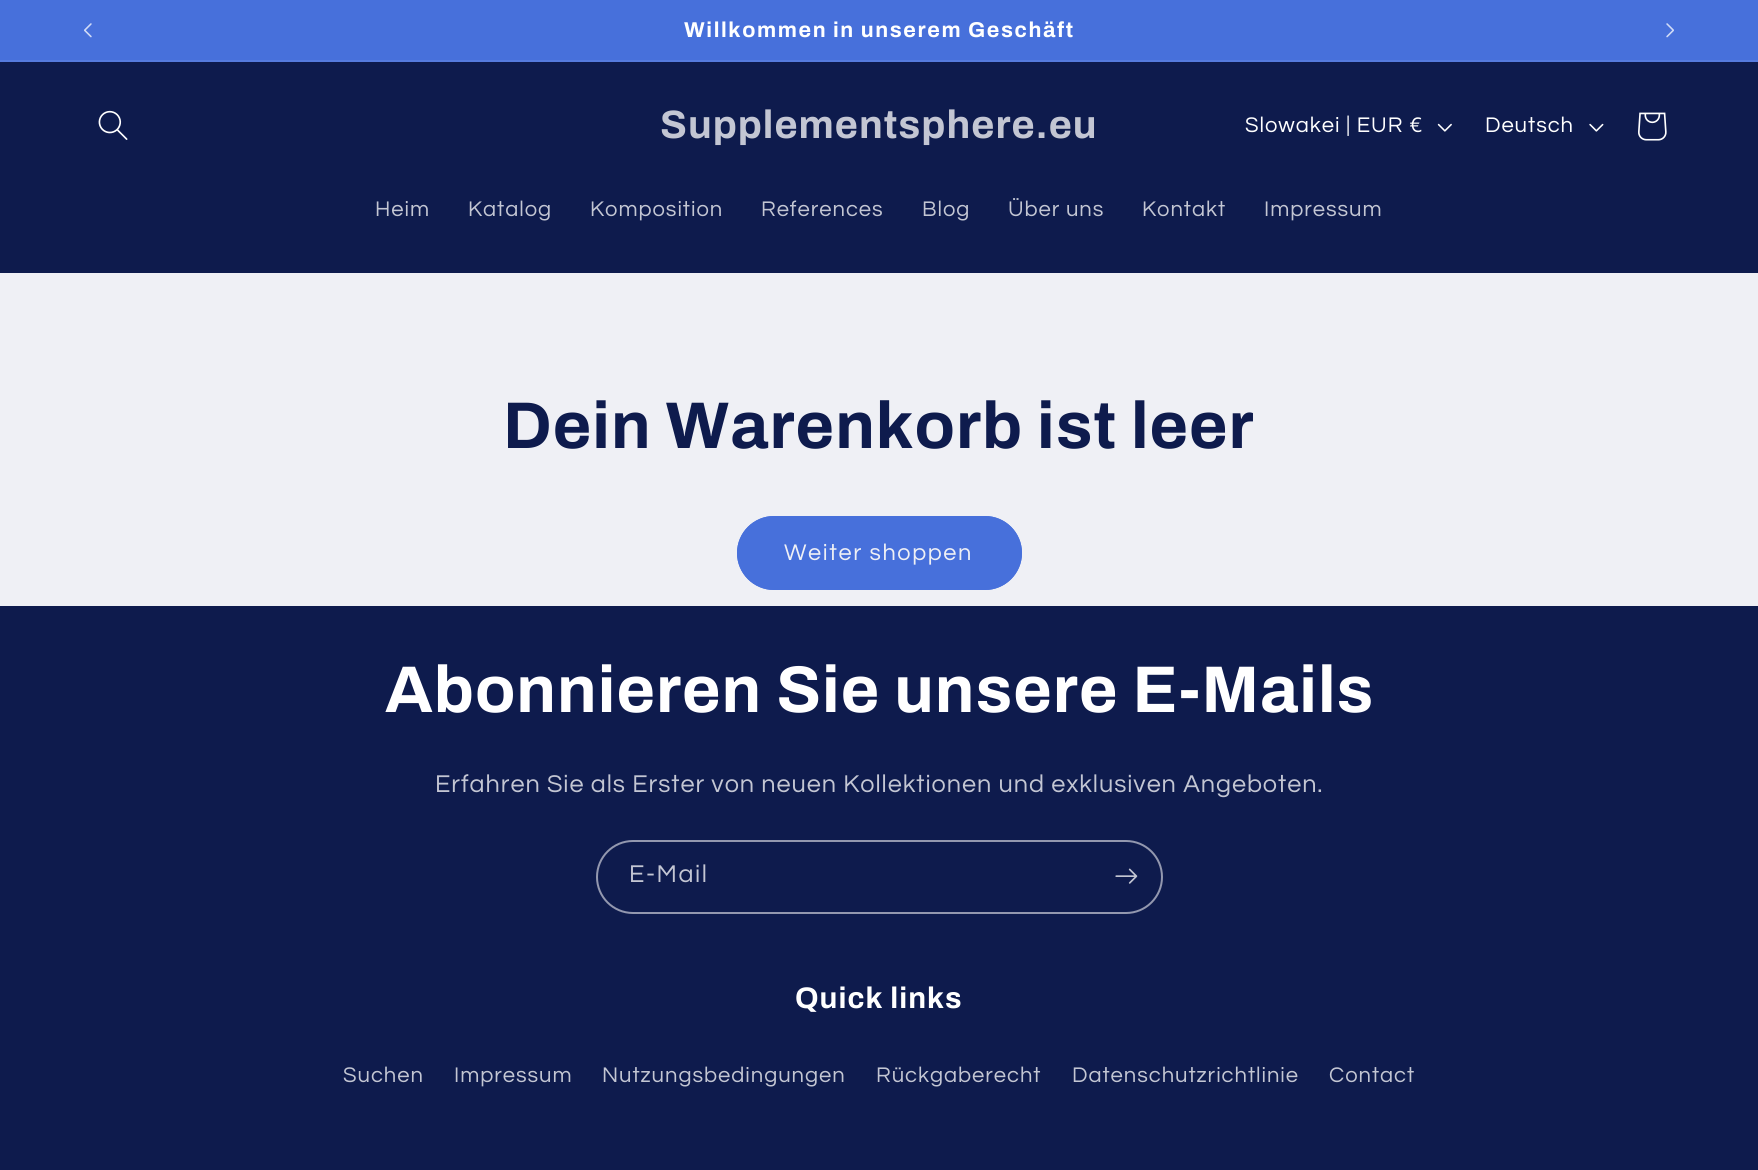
#include <cairo.h>
#include <math.h>
#include <stddef.h>


static void rgb(cairo_t *cr, int r, int g, int b)
{
	cairo_set_source_rgb(cr, r / 255.0, g / 255.0, b / 255.0);
}

static void face(cairo_t *cr, const char *family, double size, int italic, int bold)
{
	cairo_select_font_face(cr, family, italic ? CAIRO_FONT_SLANT_ITALIC : CAIRO_FONT_SLANT_NORMAL,
		bold ? CAIRO_FONT_WEIGHT_BOLD : CAIRO_FONT_WEIGHT_NORMAL);
	cairo_set_font_size(cr, size);
}

static void tracked(cairo_t *cr, double x, double y, const char *s, double letter, double word)
{
	cairo_move_to(cr, x, y);
	while (*s) {
		char ch[5] = {0};
		int n = 0;
		do ch[n++] = *s++; while ((*s & 0xC0) == 0x80);
		cairo_show_text(cr, ch);
		cairo_rel_move_to(cr, letter + word * (*ch == ' '), 0);
	}
}

static void rect(cairo_t *cr, double x, double y, double w, double h)
{
	cairo_rectangle(cr, x, y, w, h);
	cairo_fill(cr);
}

static void rrect(cairo_t *cr, double x, double y, double w, double h, double r)
{
	cairo_new_sub_path(cr);
	cairo_arc(cr, x + w - r, y + h - r, r, 0, M_PI / 2);
	cairo_arc(cr, x + r, y + h - r, r, M_PI / 2, M_PI);
	cairo_arc(cr, x + r, y + r, r, M_PI, 1.5 * M_PI);
	cairo_arc(cr, x + w - r, y + r, r, 1.5 * M_PI, 2 * M_PI);
	cairo_close_path(cr);
}

static void image(cairo_t *cr, const char *path, double x, double y, double w, double h)
{
	cairo_surface_t *image = cairo_image_surface_create_from_png(path);
	cairo_save(cr);
	cairo_set_source_surface(cr, image, x, y);
	cairo_rectangle(cr, x, y, w, h);
	cairo_fill(cr);
	cairo_restore(cr);
	cairo_surface_destroy(image);
}

static void draw(cairo_t *cr) {
	rgb(cr, 239, 240, 245);
	cairo_paint(cr);
	rgb(cr, 71, 112, 219);
	rect(cr, 0, 0, 1758, 60);
	rgb(cr, 86, 123, 222);
	rect(cr, 0, 60, 1758, 2);
	image(cr, "image0.png", 84, 23, 8, 15);
	face(cr, "Archivo", 21.5, 0, 1);
	rgb(cr, 255, 255, 255);
	tracked(cr, 684, 37, "Willkommen in unserem Geschäft", 1.6, 0);
	image(cr, "image1.png", 1666, 23, 8, 15);
	rgb(cr, 14, 27, 77);
	rect(cr, 0, 62, 1758, 211);
	image(cr, "image2.png", 98, 110, 30, 30);
	face(cr, "Archivo", 39.6, 0, 1);
	rgb(cr, 195, 198, 211);
	tracked(cr, 660, 138, "Supplementsphere.eu", 1, 0);
	face(cr, "Questrial", 22, 0, 0);
	rgb(cr, 255, 255, 255);
	tracked(cr, 1245, 132, "Slowakei | EUR €", 0.95, 0);
	image(cr, "image3.png", 1437, 123, 15, 9);
	tracked(cr, 1485, 132, "Deutsch", 0.95, 0);
	image(cr, "image4.png", 1589, 123, 15, 9);
	image(cr, "image5.png", 1638, 112, 29, 29);
	rgb(cr, 195, 198, 211);
	tracked(cr, 375, 216, "Heim", 0.95, 0);
	tracked(cr, 468, 216, "Katalog", 0.95, 0);
	tracked(cr, 590, 216, "Komposition", 0.95, 0);
	tracked(cr, 761, 216, "References", 0.95, 0);
	tracked(cr, 922, 216, "Blog", 0.95, 0);
	tracked(cr, 1008, 216, "Über uns", 0.95, 0);
	tracked(cr, 1142, 216, "Kontakt", 0.95, 0);
	tracked(cr, 1264, 216, "Impressum", 0.95, 0);
	face(cr, "Archivo", 66, 0, 1);
	rgb(cr, 14, 27, 77);
	tracked(cr, 503, 448, "Dein Warenkorb ist leer", 1, 0);
	rgb(cr, 71, 112, 219);
	rrect(cr, 737, 516, 285, 74, 37);
	cairo_fill(cr);
	rrect(cr, 738, 517, 283, 72, 36);
	cairo_stroke(cr);
	face(cr, "Questrial", 23.5, 0, 0);
	rgb(cr, 239, 240, 245);
	tracked(cr, 784, 560, "Weiter shoppen", 1.6, 0);
	rgb(cr, 14, 27, 77);
	rect(cr, 0, 606, 1758, 564);
	face(cr, "Archivo", 66, 0, 1);
	rgb(cr, 255, 255, 255);
	tracked(cr, 385, 712, "Abonnieren Sie unsere E-Mails", 1, 0);
	face(cr, "Questrial", 25.2, 0, 0);
	rgb(cr, 195, 198, 211);
	tracked(cr, 435, 792, "Erfahren Sie als Erster von neuen Kollektionen und exklusiven Angeboten.", 0.95, 0);
	rrect(cr, 597, 841, 565, 72, 36);
	rgb(cr, 147, 152, 175);
	cairo_stroke(cr);
	rgb(cr, 195, 198, 211);
	tracked(cr, 629, 882, "E-Mail", 1.6, 0);
	image(cr, "image6.png", 1115, 868, 23, 16);
	face(cr, "Archivo", 29.75, 0, 1);
	rgb(cr, 255, 255, 255);
	tracked(cr, 795, 1008, "Quick links", 1, 0);
	face(cr, "Questrial", 22, 0, 0);
	rgb(cr, 195, 198, 211);
	tracked(cr, 343, 1082, "Suchen", 0.95, 0);
	tracked(cr, 454, 1082, "Impressum", 0.95, 0);
	tracked(cr, 602, 1082, "Nutzungsbedingungen", 0.95, 0);
	tracked(cr, 876, 1082, "Rückgaberecht", 0.95, 0);
	tracked(cr, 1072, 1082, "Datenschutzrichtlinie", 0.95, 0);
	tracked(cr, 1329, 1082, "Contact", 0.95, 0);
}

int main(void) {
	cairo_surface_t *surface = cairo_image_surface_create(CAIRO_FORMAT_RGB24, 1758, 1170);
	cairo_t *cr = cairo_create(surface);
	cairo_font_options_t *options = cairo_font_options_create();
	cairo_font_options_set_hint_metrics(options, CAIRO_HINT_METRICS_OFF);
	cairo_font_options_set_hint_style(options, CAIRO_HINT_STYLE_NONE);
	cairo_set_font_options(cr, options);
	cairo_set_miter_limit(cr, 4);
	draw(cr);
	cairo_surface_write_to_png(surface, "render.png");
	cairo_font_options_destroy(options);
	cairo_destroy(cr);
	cairo_surface_destroy(surface);
	return 0;
}
